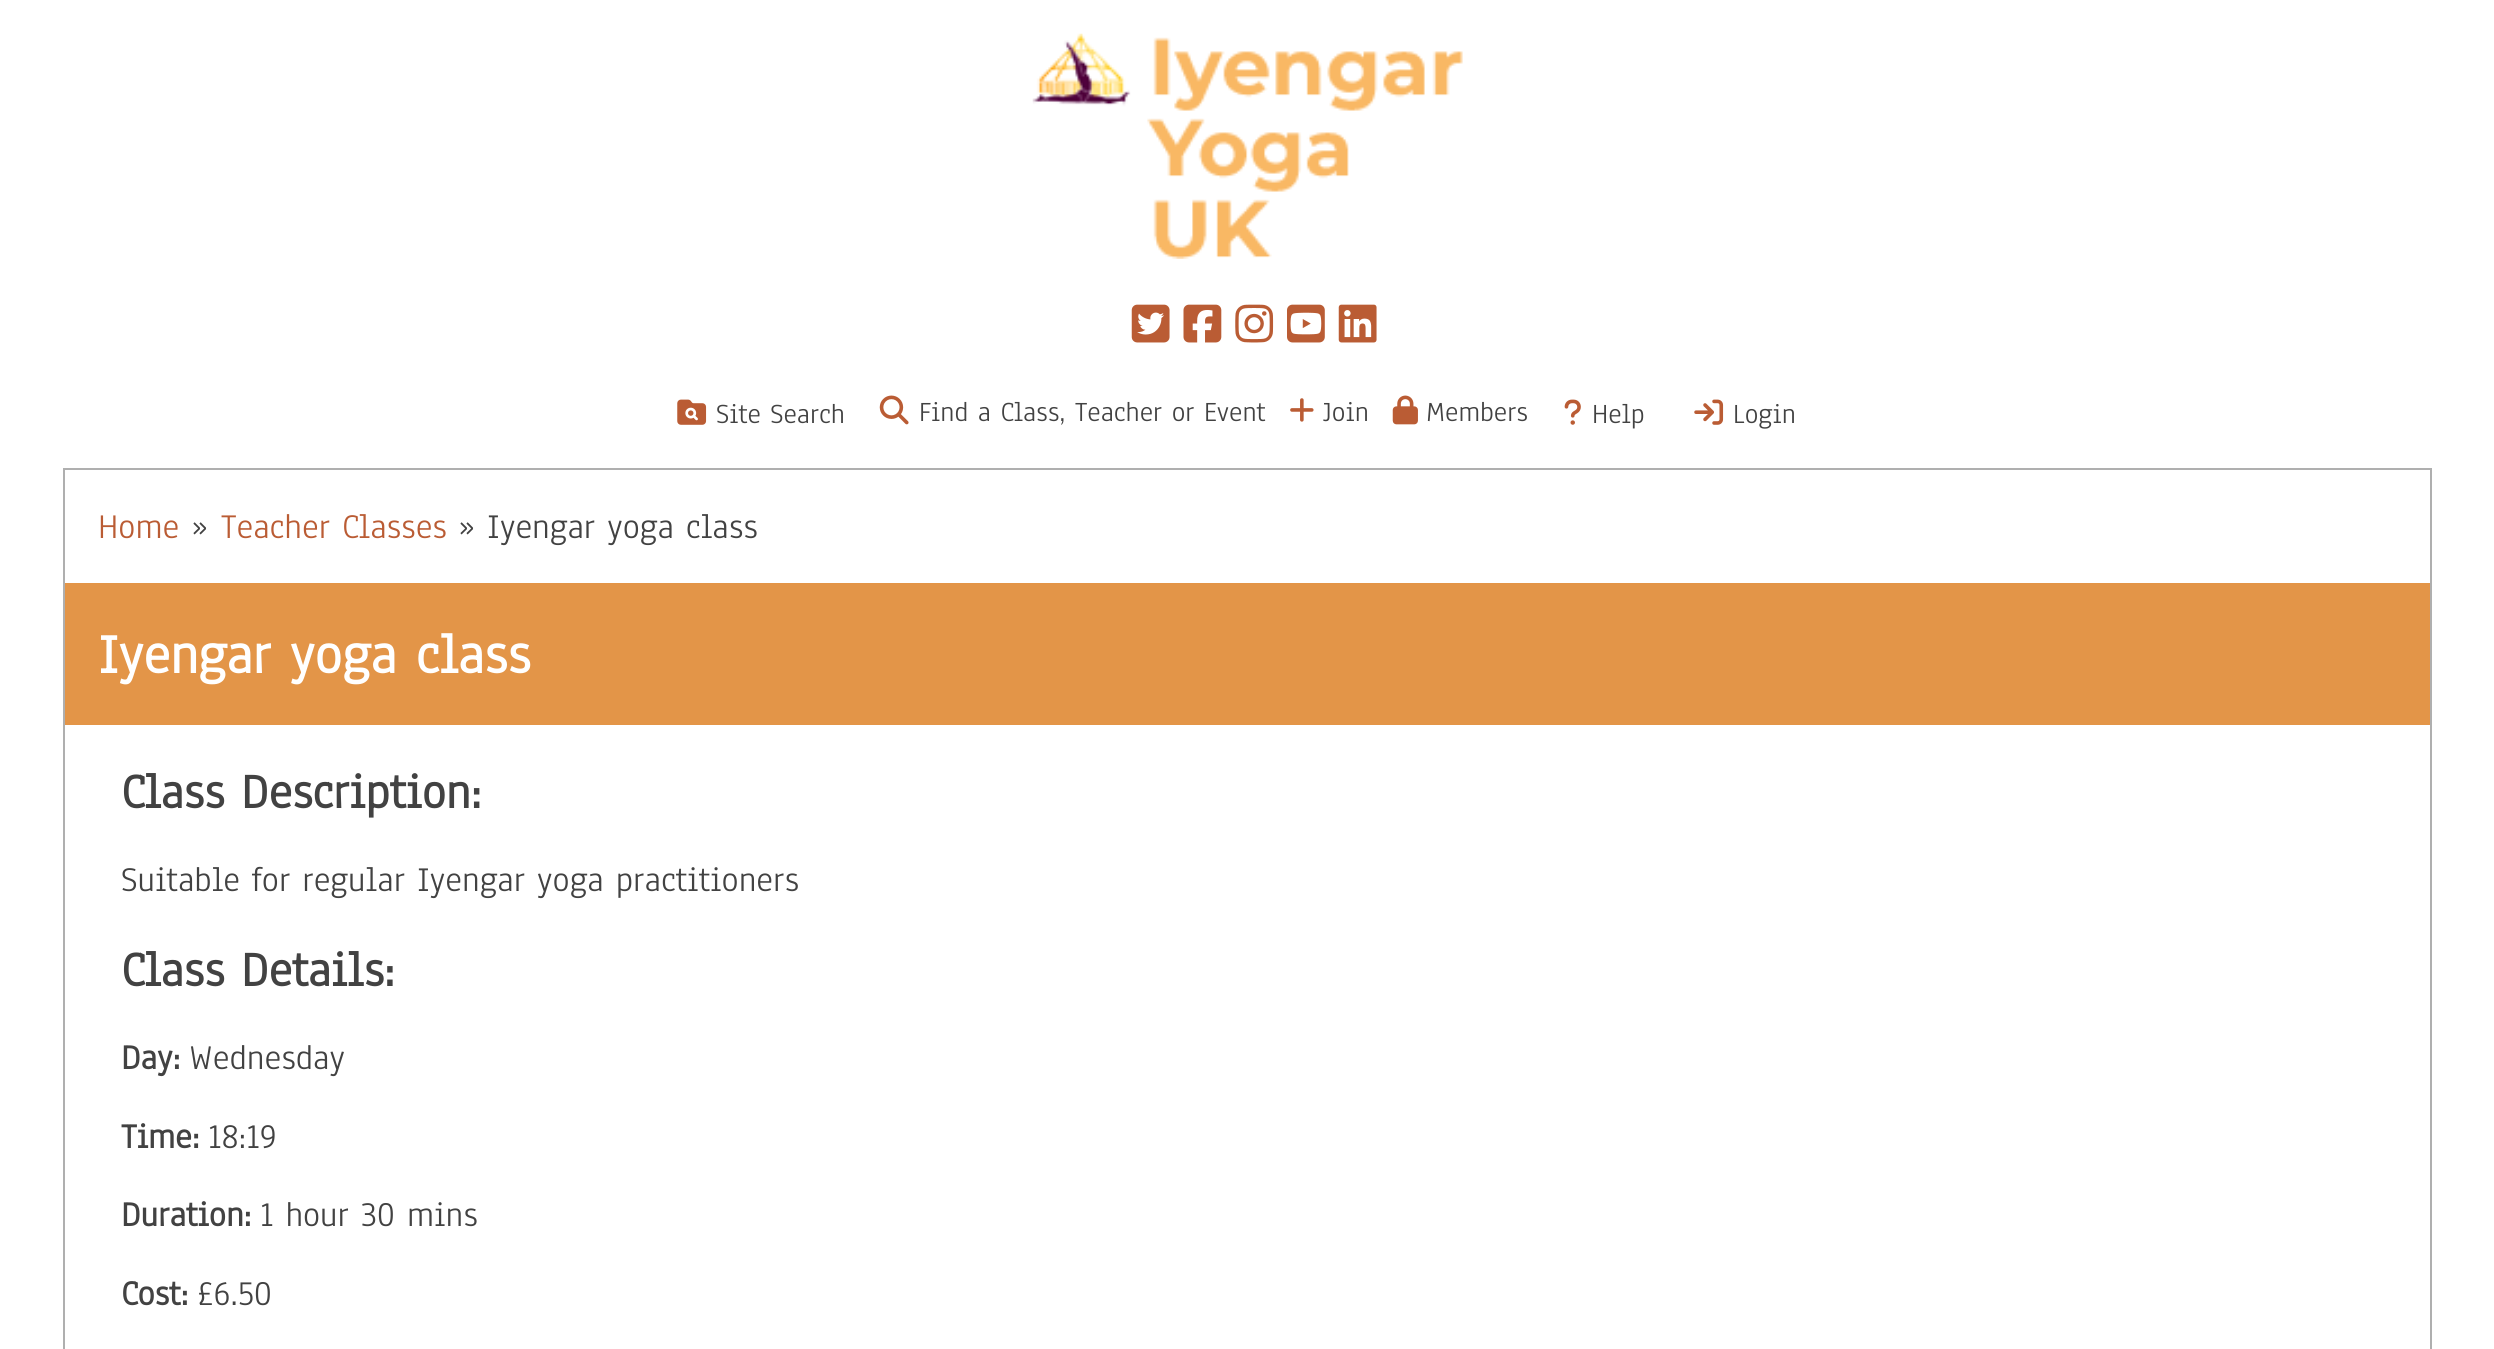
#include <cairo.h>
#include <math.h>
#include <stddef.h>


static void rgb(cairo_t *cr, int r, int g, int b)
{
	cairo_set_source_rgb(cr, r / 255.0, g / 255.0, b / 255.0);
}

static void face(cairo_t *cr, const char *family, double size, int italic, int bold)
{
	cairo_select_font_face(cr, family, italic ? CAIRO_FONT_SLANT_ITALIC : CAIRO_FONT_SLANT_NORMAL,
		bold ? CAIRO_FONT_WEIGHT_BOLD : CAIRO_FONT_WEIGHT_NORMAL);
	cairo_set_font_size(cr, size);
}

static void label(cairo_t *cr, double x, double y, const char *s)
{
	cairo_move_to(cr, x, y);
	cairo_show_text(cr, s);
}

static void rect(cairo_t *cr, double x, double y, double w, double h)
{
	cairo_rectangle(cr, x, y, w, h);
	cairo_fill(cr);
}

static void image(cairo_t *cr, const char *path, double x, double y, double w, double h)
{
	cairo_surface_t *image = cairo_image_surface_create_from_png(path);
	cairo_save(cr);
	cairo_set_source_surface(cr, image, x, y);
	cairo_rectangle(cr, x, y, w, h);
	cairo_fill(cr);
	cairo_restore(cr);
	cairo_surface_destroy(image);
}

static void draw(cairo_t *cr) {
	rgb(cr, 255, 255, 255);
	cairo_paint(cr);
	image(cr, "image0.png", 1032, 33, 431, 226);
	image(cr, "image1.png", 1131, 304, 39, 39);
	image(cr, "image2.png", 1183, 304, 39, 39);
	image(cr, "image3.png", 1235, 304, 39, 39);
	image(cr, "image4.png", 1287, 304, 38, 39);
	image(cr, "image5.png", 1338, 304, 39, 39);
	image(cr, "image6.png", 677, 399, 30, 26);
	face(cr, "Anaheim", 28.75, 0, 0);
	rgb(cr, 66, 66, 66);
	label(cr, 716, 423, "Site Search");
	image(cr, "image7.png", 879, 395, 30, 30);
	label(cr, 919, 421, "Find a Class, Teacher or Event");
	image(cr, "image8.png", 1290, 398, 24, 24);
	label(cr, 1323, 421, "Join");
	image(cr, "image9.png", 1392, 395, 26, 30);
	label(cr, 1426, 421, "Members");
	image(cr, "image10.png", 1564, 399, 17, 26);
	label(cr, 1592, 423, "Help");
	image(cr, "image11.png", 1694, 399, 30, 26);
	label(cr, 1733, 423, "Login");
	cairo_rectangle(cr, 64, 469, 2367, 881);
	rgb(cr, 175, 175, 175);
	cairo_stroke(cr);
	face(cr, "Anaheim", 36, 0, 0);
	rgb(cr, 186, 92, 52);
	label(cr, 98, 538, "Home");
	rgb(cr, 66, 66, 66);
	label(cr, 191, 538, "»");
	rgb(cr, 186, 92, 52);
	label(cr, 221, 538, "Teacher Classes");
	rgb(cr, 66, 66, 66);
	label(cr, 458, 538, "» Iyengar yoga class");
	rgb(cr, 227, 149, 72);
	rect(cr, 65, 583, 2365, 142);
	face(cr, "Anaheim", 57.5, 0, 1);
	rgb(cr, 255, 255, 255);
	label(cr, 98, 673, "Iyengar yoga class");
	face(cr, "Anaheim", 50.5, 0, 1);
	rgb(cr, 66, 66, 66);
	label(cr, 121, 808, "Class Description:");
	face(cr, "Anaheim", 36, 0, 0);
	label(cr, 121, 891, "Suitable for regular Iyengar yoga practitioners");
	face(cr, "Anaheim", 50.5, 0, 1);
	label(cr, 121, 986, "Class Details:");
	face(cr, "Anaheim", 36, 0, 1);
	label(cr, 121, 1069, "Day:");
	face(cr, "Anaheim", 36, 0, 0);
	label(cr, 189, 1069, "Wednesday");
	face(cr, "Anaheim", 36, 0, 1);
	label(cr, 121, 1148, "Time:");
	face(cr, "Anaheim", 36, 0, 0);
	label(cr, 208, 1148, "18:19");
	face(cr, "Anaheim", 36, 0, 1);
	label(cr, 121, 1226, "Duration:");
	face(cr, "Anaheim", 36, 0, 0);
	label(cr, 260, 1226, "1 hour 30 mins");
	face(cr, "Anaheim", 36, 0, 1);
	label(cr, 121, 1305, "Cost:");
	face(cr, "Anaheim", 36, 0, 0);
	label(cr, 197, 1305, "£6.50");
}

int main(void) {
	cairo_surface_t *surface = cairo_image_surface_create(CAIRO_FORMAT_RGB24, 2494, 1349);
	cairo_t *cr = cairo_create(surface);
	cairo_font_options_t *options = cairo_font_options_create();
	cairo_font_options_set_hint_metrics(options, CAIRO_HINT_METRICS_OFF);
	cairo_font_options_set_hint_style(options, CAIRO_HINT_STYLE_NONE);
	cairo_set_font_options(cr, options);
	cairo_set_miter_limit(cr, 4);
	draw(cr);
	cairo_surface_write_to_png(surface, "render.png");
	cairo_font_options_destroy(options);
	cairo_destroy(cr);
	cairo_surface_destroy(surface);
	return 0;
}
